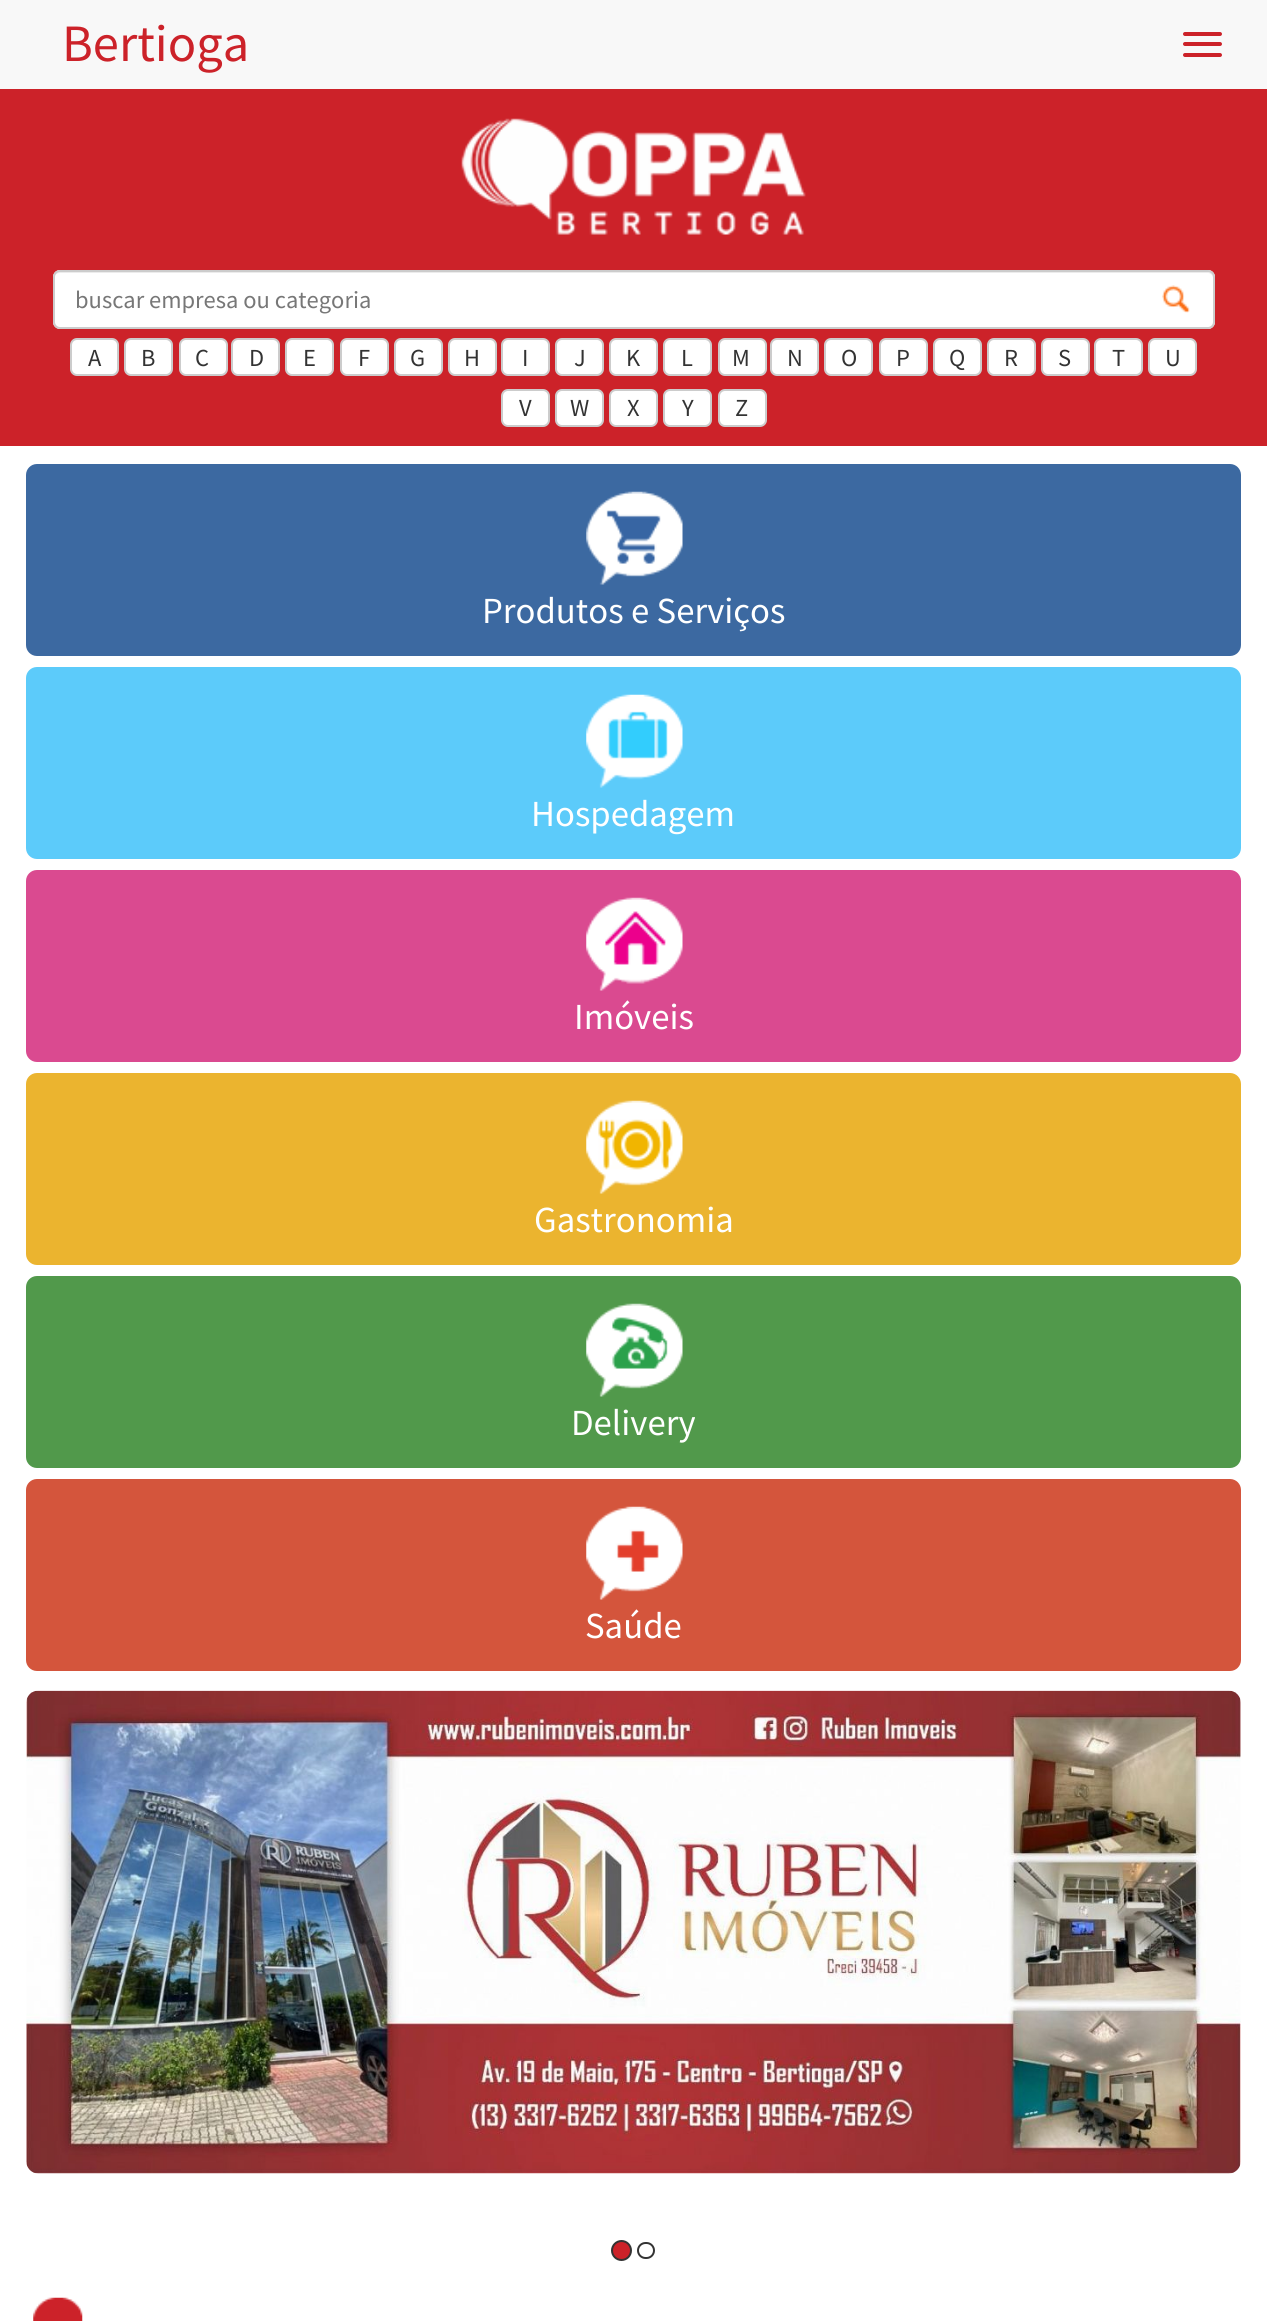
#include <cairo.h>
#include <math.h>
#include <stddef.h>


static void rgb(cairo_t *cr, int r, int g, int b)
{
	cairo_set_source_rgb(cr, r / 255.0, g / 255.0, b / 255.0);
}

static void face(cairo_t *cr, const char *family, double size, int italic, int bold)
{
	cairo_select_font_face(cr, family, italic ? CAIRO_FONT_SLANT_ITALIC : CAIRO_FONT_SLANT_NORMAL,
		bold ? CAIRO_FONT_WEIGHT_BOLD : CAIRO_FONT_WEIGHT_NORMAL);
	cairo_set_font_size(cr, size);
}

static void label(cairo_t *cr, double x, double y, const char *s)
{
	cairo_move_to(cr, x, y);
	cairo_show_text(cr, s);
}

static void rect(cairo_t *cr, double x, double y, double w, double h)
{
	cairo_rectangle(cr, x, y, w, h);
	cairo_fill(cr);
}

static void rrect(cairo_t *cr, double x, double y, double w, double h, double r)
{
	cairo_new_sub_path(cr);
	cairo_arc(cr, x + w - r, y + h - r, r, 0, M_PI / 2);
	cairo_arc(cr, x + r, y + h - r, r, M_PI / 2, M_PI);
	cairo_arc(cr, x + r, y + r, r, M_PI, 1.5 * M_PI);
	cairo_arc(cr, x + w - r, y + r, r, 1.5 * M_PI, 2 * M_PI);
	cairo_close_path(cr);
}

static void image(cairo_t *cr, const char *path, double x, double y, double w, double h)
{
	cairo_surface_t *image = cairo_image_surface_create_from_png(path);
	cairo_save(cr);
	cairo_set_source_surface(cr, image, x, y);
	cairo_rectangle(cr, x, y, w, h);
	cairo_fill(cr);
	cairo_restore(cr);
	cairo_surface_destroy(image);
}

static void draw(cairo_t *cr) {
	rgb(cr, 255, 255, 255);
	cairo_paint(cr);
	rgb(cr, 248, 248, 248);
	rect(cr, 0, 0, 1267, 89);
	face(cr, "Source Sans Pro", 52.5, 0, 0);
	rgb(cr, 204, 34, 41);
	label(cr, 62, 61, "Bertioga");
	rrect(cr, 1183, 32, 39, 4, 2);
	cairo_fill(cr);
	rrect(cr, 1183, 42, 39, 4, 2);
	cairo_fill(cr);
	rrect(cr, 1183, 53, 39, 4, 2);
	cairo_fill(cr);
	rect(cr, 0, 89, 1267, 357);
	image(cr, "image0.png", 461, 118, 345, 117);
	rgb(cr, 255, 255, 255);
	rrect(cr, 53, 270, 1162, 59, 7);
	cairo_fill(cr);
	image(cr, "image1.png", 1162, 285, 28, 28);
	rgb(cr, 236, 236, 236);
	cairo_new_path(cr);
	cairo_move_to(cr, 60, 273);
	cairo_line_to(cr, 1208, 273);
	cairo_curve_to(cr, 1210, 273, 1213, 275, 1213, 278);
	cairo_line_to(cr, 1213, 276);
	cairo_curve_to(cr, 1213, 273, 1211, 271, 1208, 271);
	cairo_line_to(cr, 59, 271);
	cairo_curve_to(cr, 56, 271, 54, 273, 54, 276);
	cairo_line_to(cr, 54, 278);
	cairo_curve_to(cr, 54, 275, 57, 273, 60, 273);
	cairo_close_path(cr);
	cairo_fill(cr);
	rrect(cr, 54, 271, 1160, 57, 6);
	rgb(cr, 204, 204, 204);
	cairo_stroke(cr);
	face(cr, "Source Sans Pro", 24.5, 0, 0);
	rgb(cr, 119, 119, 119);
	label(cr, 75, 308, "buscar empresa ou categoria");
	rgb(cr, 255, 255, 255);
	rrect(cr, 71, 339, 47, 36, 6);
	cairo_fill_preserve(cr);
	rgb(cr, 204, 204, 204);
	cairo_stroke(cr);
	rgb(cr, 51, 51, 51);
	label(cr, 88, 366, "A");
	rgb(cr, 255, 255, 255);
	rrect(cr, 125, 339, 47, 36, 6);
	cairo_fill_preserve(cr);
	rgb(cr, 204, 204, 204);
	cairo_stroke(cr);
	rgb(cr, 51, 51, 51);
	label(cr, 141, 366, "B");
	rgb(cr, 255, 255, 255);
	rrect(cr, 180, 339, 47, 36, 6);
	cairo_fill_preserve(cr);
	rgb(cr, 204, 204, 204);
	cairo_stroke(cr);
	rgb(cr, 51, 51, 51);
	label(cr, 195, 366, "C");
	rgb(cr, 255, 255, 255);
	rrect(cr, 232, 339, 47, 36, 6);
	cairo_fill_preserve(cr);
	rgb(cr, 204, 204, 204);
	cairo_stroke(cr);
	rgb(cr, 51, 51, 51);
	label(cr, 249, 366, "D");
	rgb(cr, 255, 255, 255);
	rrect(cr, 286, 339, 47, 36, 6);
	cairo_fill_preserve(cr);
	rgb(cr, 204, 204, 204);
	cairo_stroke(cr);
	rgb(cr, 51, 51, 51);
	label(cr, 303, 366, "E");
	rgb(cr, 255, 255, 255);
	rrect(cr, 341, 339, 47, 36, 6);
	cairo_fill_preserve(cr);
	rgb(cr, 204, 204, 204);
	cairo_stroke(cr);
	rgb(cr, 51, 51, 51);
	label(cr, 358, 366, "F");
	rgb(cr, 255, 255, 255);
	rrect(cr, 395, 339, 47, 36, 6);
	cairo_fill_preserve(cr);
	rgb(cr, 204, 204, 204);
	cairo_stroke(cr);
	rgb(cr, 51, 51, 51);
	label(cr, 410, 366, "G");
	rgb(cr, 255, 255, 255);
	rrect(cr, 449, 339, 47, 36, 6);
	cairo_fill_preserve(cr);
	rgb(cr, 204, 204, 204);
	cairo_stroke(cr);
	rgb(cr, 51, 51, 51);
	label(cr, 464, 366, "H");
	rgb(cr, 255, 255, 255);
	rrect(cr, 502, 339, 47, 36, 6);
	cairo_fill_preserve(cr);
	rgb(cr, 204, 204, 204);
	cairo_stroke(cr);
	rgb(cr, 51, 51, 51);
	label(cr, 522, 366, "I");
	rgb(cr, 255, 255, 255);
	rrect(cr, 556, 339, 47, 36, 6);
	cairo_fill_preserve(cr);
	rgb(cr, 204, 204, 204);
	cairo_stroke(cr);
	rgb(cr, 51, 51, 51);
	label(cr, 574, 366, "J");
	rgb(cr, 255, 255, 255);
	rrect(cr, 610, 339, 47, 36, 6);
	cairo_fill_preserve(cr);
	rgb(cr, 204, 204, 204);
	cairo_stroke(cr);
	rgb(cr, 51, 51, 51);
	label(cr, 626, 366, "K");
	rgb(cr, 255, 255, 255);
	rrect(cr, 664, 339, 47, 36, 6);
	cairo_fill_preserve(cr);
	rgb(cr, 204, 204, 204);
	cairo_stroke(cr);
	rgb(cr, 51, 51, 51);
	label(cr, 681, 366, "L");
	rgb(cr, 255, 255, 255);
	rrect(cr, 719, 339, 47, 36, 6);
	cairo_fill_preserve(cr);
	rgb(cr, 204, 204, 204);
	cairo_stroke(cr);
	rgb(cr, 51, 51, 51);
	label(cr, 732, 366, "M");
	rgb(cr, 255, 255, 255);
	rrect(cr, 771, 339, 47, 36, 6);
	cairo_fill_preserve(cr);
	rgb(cr, 204, 204, 204);
	cairo_stroke(cr);
	rgb(cr, 51, 51, 51);
	label(cr, 787, 366, "N");
	rgb(cr, 255, 255, 255);
	rrect(cr, 825, 339, 47, 36, 6);
	cairo_fill_preserve(cr);
	rgb(cr, 204, 204, 204);
	cairo_stroke(cr);
	rgb(cr, 51, 51, 51);
	label(cr, 841, 366, "O");
	rgb(cr, 255, 255, 255);
	rrect(cr, 880, 339, 47, 36, 6);
	cairo_fill_preserve(cr);
	rgb(cr, 204, 204, 204);
	cairo_stroke(cr);
	rgb(cr, 51, 51, 51);
	label(cr, 896, 366, "P");
	rgb(cr, 255, 255, 255);
	rrect(cr, 934, 339, 47, 36, 6);
	cairo_fill_preserve(cr);
	rgb(cr, 204, 204, 204);
	cairo_stroke(cr);
	rgb(cr, 51, 51, 51);
	label(cr, 949, 366, "Q");
	rgb(cr, 255, 255, 255);
	rrect(cr, 988, 339, 47, 36, 6);
	cairo_fill_preserve(cr);
	rgb(cr, 204, 204, 204);
	cairo_stroke(cr);
	rgb(cr, 51, 51, 51);
	label(cr, 1004, 366, "R");
	rgb(cr, 255, 255, 255);
	rrect(cr, 1042, 339, 47, 36, 6);
	cairo_fill_preserve(cr);
	rgb(cr, 204, 204, 204);
	cairo_stroke(cr);
	rgb(cr, 51, 51, 51);
	label(cr, 1058, 366, "S");
	rgb(cr, 255, 255, 255);
	rrect(cr, 1095, 339, 47, 36, 6);
	cairo_fill_preserve(cr);
	rgb(cr, 204, 204, 204);
	cairo_stroke(cr);
	rgb(cr, 51, 51, 51);
	label(cr, 1112, 366, "T");
	rgb(cr, 255, 255, 255);
	rrect(cr, 1149, 339, 47, 36, 6);
	cairo_fill_preserve(cr);
	rgb(cr, 204, 204, 204);
	cairo_stroke(cr);
	rgb(cr, 51, 51, 51);
	label(cr, 1165, 366, "U");
	rgb(cr, 255, 255, 255);
	rrect(cr, 502, 390, 47, 36, 6);
	cairo_fill_preserve(cr);
	rgb(cr, 204, 204, 204);
	cairo_stroke(cr);
	rgb(cr, 51, 51, 51);
	label(cr, 519, 416, "V");
	rgb(cr, 255, 255, 255);
	rrect(cr, 556, 390, 47, 36, 6);
	cairo_fill_preserve(cr);
	rgb(cr, 204, 204, 204);
	cairo_stroke(cr);
	rgb(cr, 51, 51, 51);
	label(cr, 570, 416, "W");
	rgb(cr, 255, 255, 255);
	rrect(cr, 610, 390, 47, 36, 6);
	cairo_fill_preserve(cr);
	rgb(cr, 204, 204, 204);
	cairo_stroke(cr);
	rgb(cr, 51, 51, 51);
	label(cr, 627, 416, "X");
	rgb(cr, 255, 255, 255);
	rrect(cr, 664, 390, 47, 36, 6);
	cairo_fill_preserve(cr);
	rgb(cr, 204, 204, 204);
	cairo_stroke(cr);
	rgb(cr, 51, 51, 51);
	label(cr, 682, 416, "Y");
	rgb(cr, 255, 255, 255);
	rrect(cr, 719, 390, 47, 36, 6);
	cairo_fill_preserve(cr);
	rgb(cr, 204, 204, 204);
	cairo_stroke(cr);
	rgb(cr, 51, 51, 51);
	label(cr, 735, 416, "Z");
	rgb(cr, 60, 105, 161);
	rrect(cr, 26, 464, 1215, 192, 11);
	cairo_fill(cr);
	image(cr, "image2.png", 586, 491, 97, 94);
	face(cr, "Source Sans Pro", 36.75, 0, 0);
	rgb(cr, 255, 255, 255);
	label(cr, 482, 623, "Produtos e Serviços");
	rgb(cr, 92, 203, 250);
	rrect(cr, 26, 667, 1215, 192, 11);
	cairo_fill(cr);
	image(cr, "image3.png", 586, 694, 97, 94);
	rgb(cr, 255, 255, 255);
	label(cr, 531, 826, "Hospedagem");
	rgb(cr, 218, 74, 144);
	rrect(cr, 26, 870, 1215, 192, 11);
	cairo_fill(cr);
	image(cr, "image4.png", 586, 897, 97, 94);
	rgb(cr, 255, 255, 255);
	label(cr, 574, 1029, "Imóveis");
	rgb(cr, 235, 180, 47);
	rrect(cr, 26, 1073, 1215, 192, 11);
	cairo_fill(cr);
	image(cr, "image5.png", 586, 1100, 97, 94);
	rgb(cr, 255, 255, 255);
	label(cr, 534, 1232, "Gastronomia");
	rgb(cr, 81, 153, 75);
	rrect(cr, 26, 1276, 1215, 192, 11);
	cairo_fill(cr);
	image(cr, "image6.png", 586, 1303, 97, 94);
	rgb(cr, 255, 255, 255);
	label(cr, 571, 1435, "Delivery");
	rgb(cr, 212, 85, 60);
	rrect(cr, 26, 1479, 1215, 192, 11);
	cairo_fill(cr);
	image(cr, "image7.png", 586, 1506, 97, 94);
	rgb(cr, 255, 255, 255);
	label(cr, 585, 1638, "Saúde");
	image(cr, "image8.png", 26, 1690, 1215, 484);
	rgb(cr, 204, 34, 41);
	cairo_arc(cr, 621.5, 2250.5, 9.5, 0, 2 * M_PI);
	cairo_fill_preserve(cr);
	rgb(cr, 51, 51, 51);
	cairo_stroke(cr);
	rrect(cr, 638, 2243, 16, 15, 7.5);
	cairo_stroke(cr);
	image(cr, "image9.png", 33, 2297, 50, 24);
}

int main(void) {
	cairo_surface_t *surface = cairo_image_surface_create(CAIRO_FORMAT_RGB24, 1267, 2321);
	cairo_t *cr = cairo_create(surface);
	cairo_font_options_t *options = cairo_font_options_create();
	cairo_font_options_set_hint_metrics(options, CAIRO_HINT_METRICS_OFF);
	cairo_font_options_set_hint_style(options, CAIRO_HINT_STYLE_NONE);
	cairo_set_font_options(cr, options);
	cairo_set_miter_limit(cr, 4);
	draw(cr);
	cairo_surface_write_to_png(surface, "render.png");
	cairo_font_options_destroy(options);
	cairo_destroy(cr);
	cairo_surface_destroy(surface);
	return 0;
}
